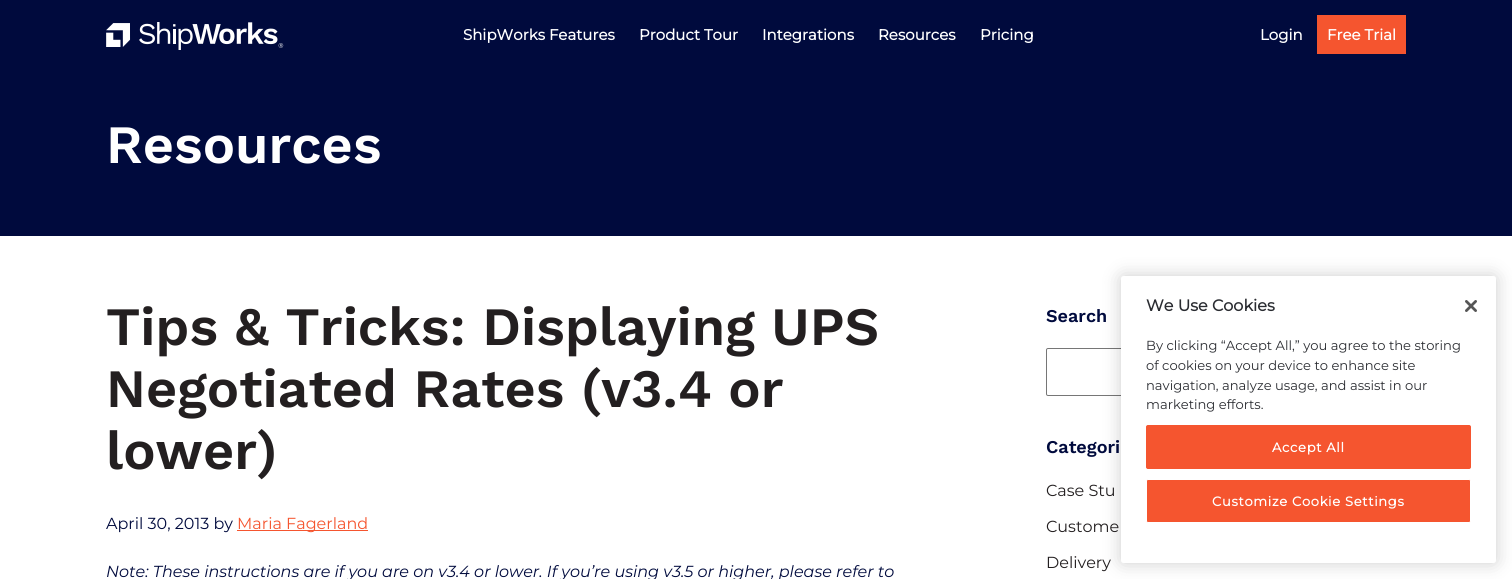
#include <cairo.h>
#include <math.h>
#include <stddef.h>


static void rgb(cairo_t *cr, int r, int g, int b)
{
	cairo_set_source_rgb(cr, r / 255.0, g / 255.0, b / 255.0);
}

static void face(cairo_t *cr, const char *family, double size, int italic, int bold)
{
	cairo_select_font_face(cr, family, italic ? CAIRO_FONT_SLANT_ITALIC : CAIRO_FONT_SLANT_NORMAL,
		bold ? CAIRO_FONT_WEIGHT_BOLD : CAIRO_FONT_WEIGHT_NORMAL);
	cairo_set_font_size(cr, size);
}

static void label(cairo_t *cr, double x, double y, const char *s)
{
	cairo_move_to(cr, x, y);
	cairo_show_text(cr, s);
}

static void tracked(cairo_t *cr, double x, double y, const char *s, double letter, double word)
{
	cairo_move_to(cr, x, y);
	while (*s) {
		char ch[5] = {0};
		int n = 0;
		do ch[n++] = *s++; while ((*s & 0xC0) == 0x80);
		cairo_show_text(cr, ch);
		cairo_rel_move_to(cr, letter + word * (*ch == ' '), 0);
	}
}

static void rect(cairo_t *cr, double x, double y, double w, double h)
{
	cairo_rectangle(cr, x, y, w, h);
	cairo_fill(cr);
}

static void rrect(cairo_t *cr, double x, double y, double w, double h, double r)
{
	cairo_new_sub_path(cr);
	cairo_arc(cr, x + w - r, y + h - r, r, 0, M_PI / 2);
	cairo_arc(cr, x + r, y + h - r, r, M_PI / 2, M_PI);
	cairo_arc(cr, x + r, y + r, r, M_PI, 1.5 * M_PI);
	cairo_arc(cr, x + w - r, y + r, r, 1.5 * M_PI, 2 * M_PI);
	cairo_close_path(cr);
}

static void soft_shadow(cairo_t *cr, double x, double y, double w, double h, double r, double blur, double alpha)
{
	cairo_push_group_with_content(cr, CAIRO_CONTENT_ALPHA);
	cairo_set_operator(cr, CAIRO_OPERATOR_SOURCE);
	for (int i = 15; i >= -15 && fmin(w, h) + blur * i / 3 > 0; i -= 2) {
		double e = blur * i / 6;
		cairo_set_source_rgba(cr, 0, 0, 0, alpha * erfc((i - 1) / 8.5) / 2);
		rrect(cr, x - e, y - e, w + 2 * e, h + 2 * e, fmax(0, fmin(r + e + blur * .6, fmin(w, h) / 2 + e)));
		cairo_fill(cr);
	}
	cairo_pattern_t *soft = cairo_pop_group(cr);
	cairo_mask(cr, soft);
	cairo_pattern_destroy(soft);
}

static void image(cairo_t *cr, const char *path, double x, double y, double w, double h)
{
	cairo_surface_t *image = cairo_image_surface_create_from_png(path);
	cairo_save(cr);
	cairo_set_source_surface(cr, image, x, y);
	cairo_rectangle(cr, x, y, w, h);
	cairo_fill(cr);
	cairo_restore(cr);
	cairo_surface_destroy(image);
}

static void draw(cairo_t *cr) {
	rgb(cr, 255, 255, 255);
	cairo_paint(cr);
	rgb(cr, 0, 10, 61);
	rect(cr, 0, 0, 1512, 236);
	image(cr, "image0.png", 106, 22, 178, 28);
	face(cr, "Montserrat", 15, 0, 1);
	rgb(cr, 255, 255, 255);
	label(cr, 463, 40, "ShipWorks Features");
	label(cr, 639, 40, "Product Tour");
	label(cr, 762, 40, "Integrations");
	label(cr, 878, 40, "Resources");
	label(cr, 980, 40, "Pricing");
	label(cr, 1260, 40, "Login");
	rgb(cr, 245, 85, 47);
	rect(cr, 1317, 15, 89, 39);
	rgb(cr, 255, 255, 255);
	label(cr, 1327, 40, "Free Trial");
	face(cr, "Work Sans SemiBold", 54, 0, 0);
	label(cr, 106, 163, "Resources");
	rgb(cr, 35, 31, 32);
	label(cr, 106, 345, "Tips & Tricks: Displaying UPS");
	label(cr, 106, 407, "Negotiated Rates (v3.4 or");
	label(cr, 106, 469, "lower)");
	face(cr, "Montserrat Thin", 16, 0, 0);
	rgb(cr, 0, 10, 61);
	label(cr, 106, 529, "April 30, 2013 by");
	rgb(cr, 245, 85, 47);
	rect(cr, 237, 530, 131, 1);
	label(cr, 237, 529, "Maria Fagerland");
	face(cr, "Montserrat Thin", 16, 1, 0);
	rgb(cr, 0, 10, 61);
	label(cr, 106, 577, "Note: These instructions are if you are on v3.4 or lower. If you’re using v3.5 or higher, please refer to");
	face(cr, "Work Sans SemiBold", 18, 0, 0);
	label(cr, 1046, 322, "Search");
	rrect(cr, 1046.5, 348.5, 212, 47, 1.5);
	rgb(cr, 118, 118, 118);
	cairo_set_line_width(cr, 1);
	cairo_stroke(cr);
	rgb(cr, 0, 10, 61);
	label(cr, 1046, 453, "Categori");
	face(cr, "Montserrat Thin", 16, 0, 0);
	rgb(cr, 35, 31, 32);
	label(cr, 1046, 496, "Case Stu");
	label(cr, 1046, 532, "Custome");
	label(cr, 1046, 568, "Delivery");
	rgb(cr, 0, 0, 0);
	soft_shadow(cr, 1121, 276, 375, 287, 2.5, 9, 0.2);
	rgb(cr, 255, 255, 255);
	rrect(cr, 1121, 276, 375, 287, 2.5);
	cairo_fill(cr);
	face(cr, "Montserrat", 16, 0, 1);
	rgb(cr, 42, 44, 49);
	label(cr, 1146, 311, "We Use Cookies");
	face(cr, "Montserrat Thin", 13.1, 0, 0);
	label(cr, 1146, 350, "By clicking “Accept All,” you agree to the storing");
	label(cr, 1146, 370, "of cookies on your device to enhance site");
	label(cr, 1146, 390, "navigation, analyze usage, and assist in our");
	label(cr, 1146, 409, "marketing efforts.");
	image(cr, "image1.png", 1465, 300, 12, 12);
	rgb(cr, 245, 85, 47);
	rrect(cr, 1146.5, 425.5, 324, 43, 1.5);
	cairo_fill_preserve(cr);
	cairo_stroke(cr);
	face(cr, "Montserrat", 13.1, 0, 1);
	rgb(cr, 255, 255, 255);
	tracked(cr, 1272, 452, "Accept All", 0.65, 0);
	rgb(cr, 245, 85, 47);
	rrect(cr, 1146.5, 479.5, 324, 43, 1.5);
	cairo_fill_preserve(cr);
	rgb(cr, 255, 255, 255);
	cairo_stroke(cr);
	tracked(cr, 1212, 506, "Customize Cookie Settings", 0.65, 0);
}

int main(void) {
	cairo_surface_t *surface = cairo_image_surface_create(CAIRO_FORMAT_RGB24, 1512, 579);
	cairo_t *cr = cairo_create(surface);
	cairo_font_options_t *options = cairo_font_options_create();
	cairo_font_options_set_hint_metrics(options, CAIRO_HINT_METRICS_OFF);
	cairo_font_options_set_hint_style(options, CAIRO_HINT_STYLE_NONE);
	cairo_set_font_options(cr, options);
	cairo_set_miter_limit(cr, 4);
	draw(cr);
	cairo_surface_write_to_png(surface, "render.png");
	cairo_font_options_destroy(options);
	cairo_destroy(cr);
	cairo_surface_destroy(surface);
	return 0;
}
